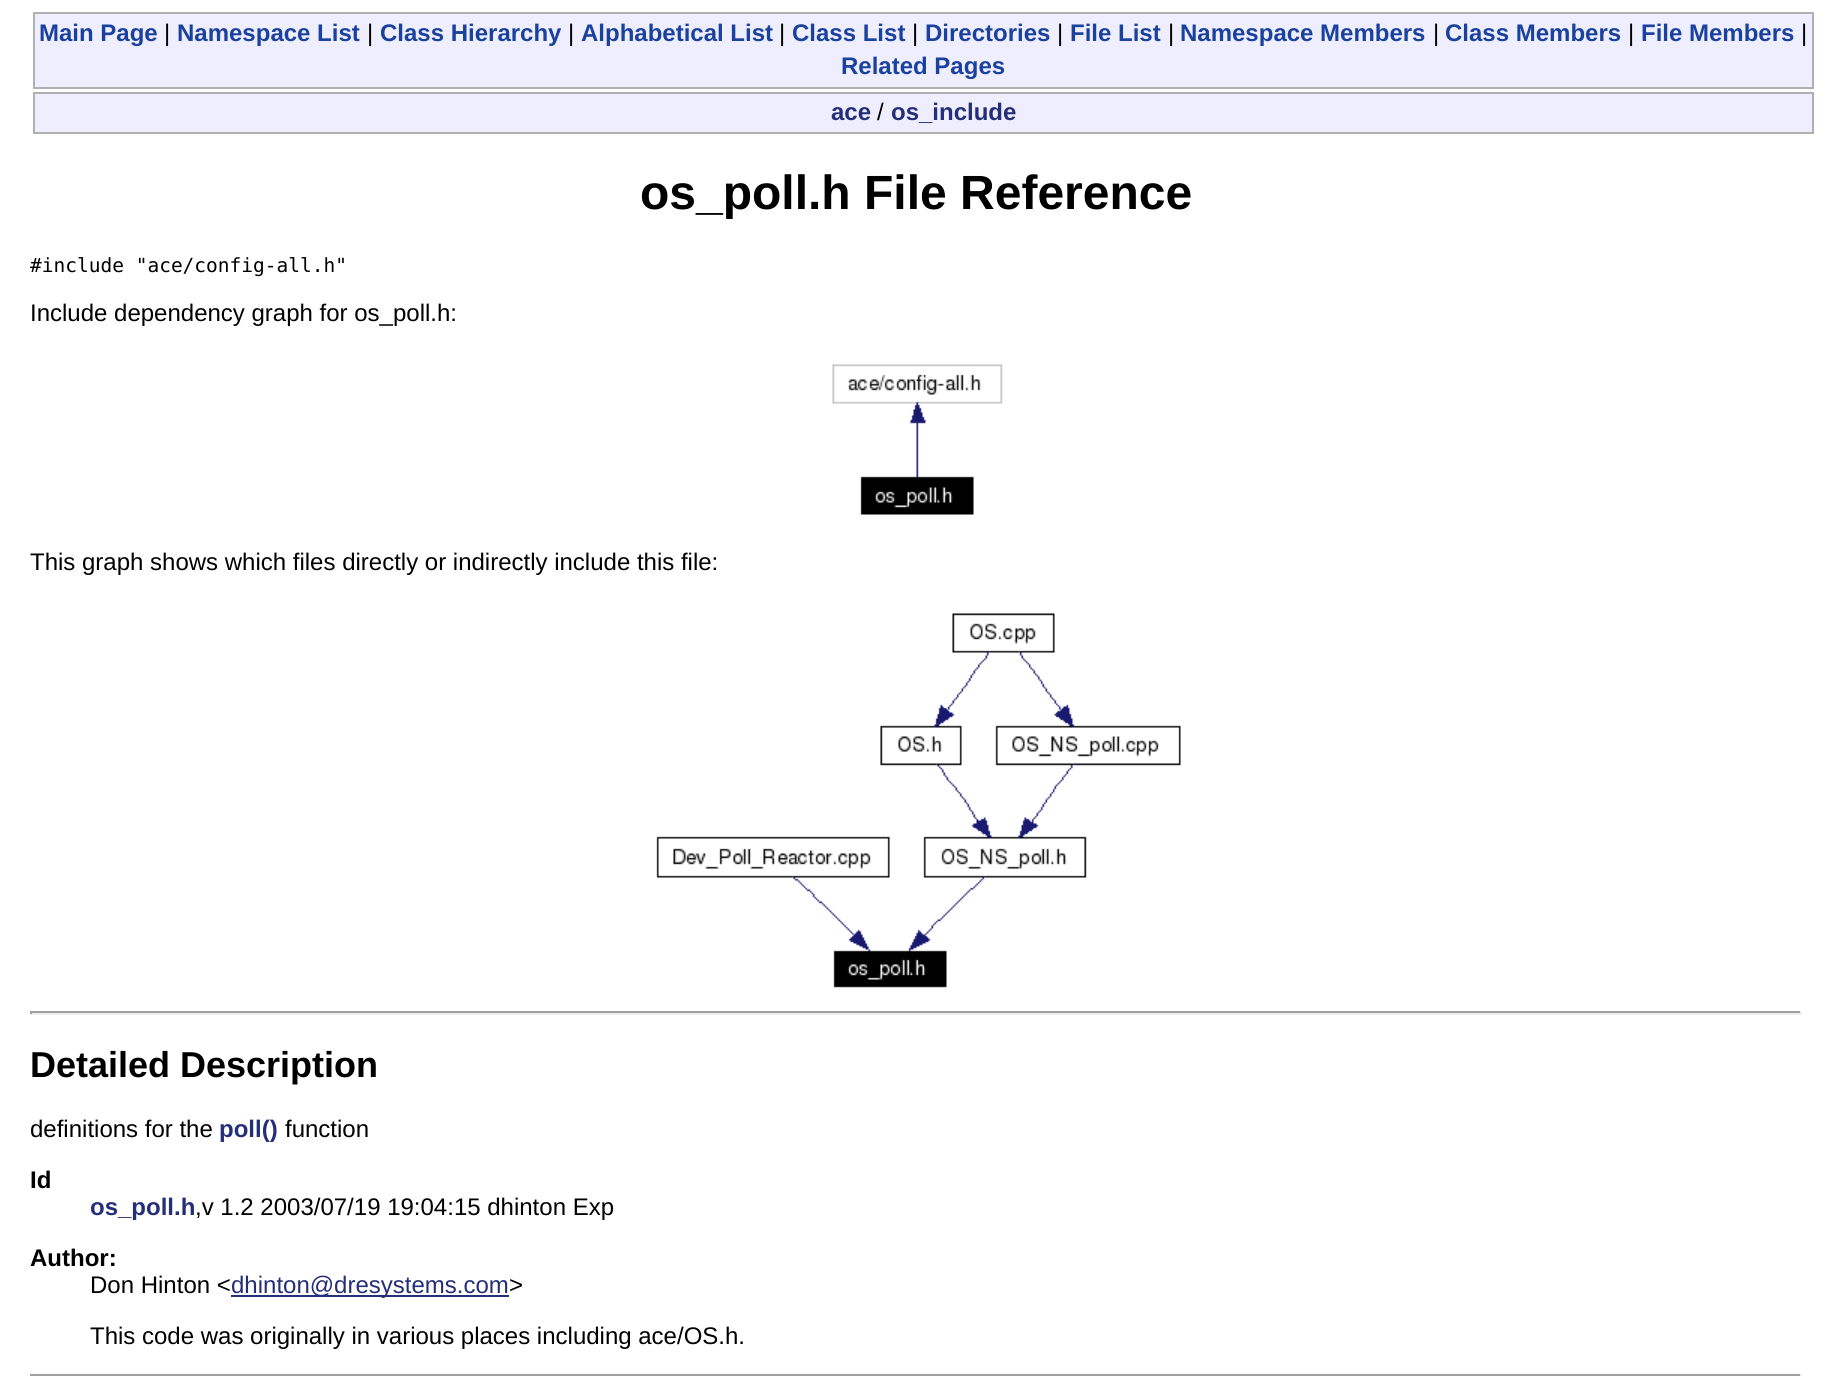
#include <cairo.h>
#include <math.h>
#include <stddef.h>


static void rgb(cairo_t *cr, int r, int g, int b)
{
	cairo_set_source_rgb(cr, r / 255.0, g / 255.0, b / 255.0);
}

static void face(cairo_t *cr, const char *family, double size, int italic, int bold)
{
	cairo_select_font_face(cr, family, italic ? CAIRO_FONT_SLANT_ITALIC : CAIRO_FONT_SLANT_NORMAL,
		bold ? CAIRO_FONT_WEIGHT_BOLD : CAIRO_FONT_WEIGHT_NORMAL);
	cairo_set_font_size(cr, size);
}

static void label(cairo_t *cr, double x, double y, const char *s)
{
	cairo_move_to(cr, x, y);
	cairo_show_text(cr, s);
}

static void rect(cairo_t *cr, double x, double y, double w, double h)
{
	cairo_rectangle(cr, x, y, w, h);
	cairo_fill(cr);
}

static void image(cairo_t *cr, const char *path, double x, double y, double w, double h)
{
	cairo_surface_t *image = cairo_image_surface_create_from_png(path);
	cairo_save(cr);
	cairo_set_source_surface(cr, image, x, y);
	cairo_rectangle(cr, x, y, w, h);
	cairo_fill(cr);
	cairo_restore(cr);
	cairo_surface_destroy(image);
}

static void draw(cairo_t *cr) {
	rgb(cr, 255, 255, 255);
	cairo_paint(cr);
	rgb(cr, 238, 238, 255);
	cairo_rectangle(cr, 34, 13, 1779, 75);
	cairo_fill_preserve(cr);
	rgb(cr, 176, 176, 176);
	cairo_stroke(cr);
	face(cr, "Liberation Sans", 24, 0, 1);
	rgb(cr, 26, 65, 157);
	label(cr, 39, 41, "Main Page");
	face(cr, "Liberation Sans", 24, 0, 0);
	rgb(cr, 0, 0, 0);
	label(cr, 164, 41, "|");
	face(cr, "Liberation Sans", 24, 0, 1);
	rgb(cr, 26, 65, 157);
	label(cr, 177, 41, "Namespace List");
	face(cr, "Liberation Sans", 24, 0, 0);
	rgb(cr, 0, 0, 0);
	label(cr, 367, 41, "|");
	face(cr, "Liberation Sans", 24, 0, 1);
	rgb(cr, 26, 65, 157);
	label(cr, 380, 41, "Class Hierarchy");
	face(cr, "Liberation Sans", 24, 0, 0);
	rgb(cr, 0, 0, 0);
	label(cr, 568, 41, "|");
	face(cr, "Liberation Sans", 24, 0, 1);
	rgb(cr, 26, 65, 157);
	label(cr, 581, 41, "Alphabetical List");
	face(cr, "Liberation Sans", 24, 0, 0);
	rgb(cr, 0, 0, 0);
	label(cr, 779, 41, "|");
	face(cr, "Liberation Sans", 24, 0, 1);
	rgb(cr, 26, 65, 157);
	label(cr, 792, 41, "Class List");
	face(cr, "Liberation Sans", 24, 0, 0);
	rgb(cr, 0, 0, 0);
	label(cr, 912, 41, "|");
	face(cr, "Liberation Sans", 24, 0, 1);
	rgb(cr, 26, 65, 157);
	label(cr, 925, 41, "Directories");
	face(cr, "Liberation Sans", 24, 0, 0);
	rgb(cr, 0, 0, 0);
	label(cr, 1057, 41, "|");
	face(cr, "Liberation Sans", 24, 0, 1);
	rgb(cr, 26, 65, 157);
	label(cr, 1070, 41, "File List");
	face(cr, "Liberation Sans", 24, 0, 0);
	rgb(cr, 0, 0, 0);
	label(cr, 1168, 41, "|");
	face(cr, "Liberation Sans", 24, 0, 1);
	rgb(cr, 26, 65, 157);
	label(cr, 1180, 41, "Namespace Members");
	face(cr, "Liberation Sans", 24, 0, 0);
	rgb(cr, 0, 0, 0);
	label(cr, 1433, 41, "|");
	face(cr, "Liberation Sans", 24, 0, 1);
	rgb(cr, 26, 65, 157);
	label(cr, 1445, 41, "Class Members");
	face(cr, "Liberation Sans", 24, 0, 0);
	rgb(cr, 0, 0, 0);
	label(cr, 1628, 41, "|");
	face(cr, "Liberation Sans", 24, 0, 1);
	rgb(cr, 26, 65, 157);
	label(cr, 1641, 41, "File Members");
	face(cr, "Liberation Sans", 24, 0, 0);
	rgb(cr, 0, 0, 0);
	label(cr, 1801, 41, "|");
	face(cr, "Liberation Sans", 24, 0, 1);
	rgb(cr, 26, 65, 157);
	label(cr, 841, 74, "Related Pages");
	rgb(cr, 238, 238, 255);
	cairo_rectangle(cr, 34, 93, 1779, 40);
	cairo_fill_preserve(cr);
	rgb(cr, 176, 176, 176);
	cairo_stroke(cr);
	rgb(cr, 37, 46, 120);
	label(cr, 831, 120, "ace");
	face(cr, "Liberation Sans", 24, 0, 0);
	rgb(cr, 0, 0, 0);
	label(cr, 877, 120, "/");
	face(cr, "Liberation Sans", 24, 0, 1);
	rgb(cr, 37, 46, 120);
	label(cr, 891, 120, "os_include");
	face(cr, "Liberation Sans", 48, 0, 1);
	rgb(cr, 0, 0, 0);
	label(cr, 640, 209, "os_poll.h File Reference");
	face(cr, "DejaVu Sans Mono", 19.5, 0, 0);
	label(cr, 30, 272, "#include \"ace/config-all.h\"");
	face(cr, "Liberation Sans", 24, 0, 0);
	label(cr, 30, 321, "Include dependency graph for os_poll.h:");
	image(cr, "image0.png", 832, 364, 171, 151);
	label(cr, 30, 570, "This graph shows which files directly or indirectly include this file:");
	image(cr, "image1.png", 656, 613, 525, 375);
	rgb(cr, 159, 159, 159);
	rect(cr, 30, 1011, 1772, 2);
	rgb(cr, 238, 238, 238);
	rect(cr, 1800, 1011, 2, 3);
	rect(cr, 30, 1013, 1772, 2);
	rgb(cr, 159, 159, 159);
	rect(cr, 30, 1011, 2, 3);
	face(cr, "Liberation Sans", 36, 0, 1);
	rgb(cr, 0, 0, 0);
	label(cr, 30, 1077, "Detailed Description");
	face(cr, "Liberation Sans", 24, 0, 0);
	label(cr, 30, 1137, "definitions for the");
	face(cr, "Liberation Sans", 24, 0, 1);
	rgb(cr, 37, 46, 120);
	label(cr, 219, 1137, "poll()");
	face(cr, "Liberation Sans", 24, 0, 0);
	rgb(cr, 0, 0, 0);
	label(cr, 285, 1137, "function");
	face(cr, "Liberation Sans", 24, 0, 1);
	label(cr, 30, 1188, "Id");
	rgb(cr, 37, 46, 120);
	label(cr, 90, 1215, "os_poll.h");
	face(cr, "Liberation Sans", 24, 0, 0);
	rgb(cr, 0, 0, 0);
	label(cr, 195, 1215, ",v 1.2 2003/07/19 19:04:15 dhinton Exp");
	face(cr, "Liberation Sans", 24, 0, 1);
	label(cr, 30, 1266, "Author:");
	face(cr, "Liberation Sans", 24, 0, 0);
	label(cr, 90, 1293, "Don Hinton <");
	rgb(cr, 37, 46, 120);
	rect(cr, 231, 1295, 278, 2);
	label(cr, 231, 1293, "dhinton@dresystems.com");
	rgb(cr, 0, 0, 0);
	label(cr, 509, 1293, ">");
	label(cr, 90, 1344, "This code was originally in various places including ace/OS.h.");
	rgb(cr, 159, 159, 159);
	rect(cr, 30, 1374, 1772, 2);
	rgb(cr, 238, 238, 238);
	rect(cr, 1800, 1374, 2, 2);
}

int main(void) {
	cairo_surface_t *surface = cairo_image_surface_create(CAIRO_FORMAT_RGB24, 1831, 1384);
	cairo_t *cr = cairo_create(surface);
	cairo_font_options_t *options = cairo_font_options_create();
	cairo_font_options_set_hint_metrics(options, CAIRO_HINT_METRICS_OFF);
	cairo_font_options_set_hint_style(options, CAIRO_HINT_STYLE_NONE);
	cairo_set_font_options(cr, options);
	cairo_set_miter_limit(cr, 4);
	draw(cr);
	cairo_surface_write_to_png(surface, "render.png");
	cairo_font_options_destroy(options);
	cairo_destroy(cr);
	cairo_surface_destroy(surface);
	return 0;
}
